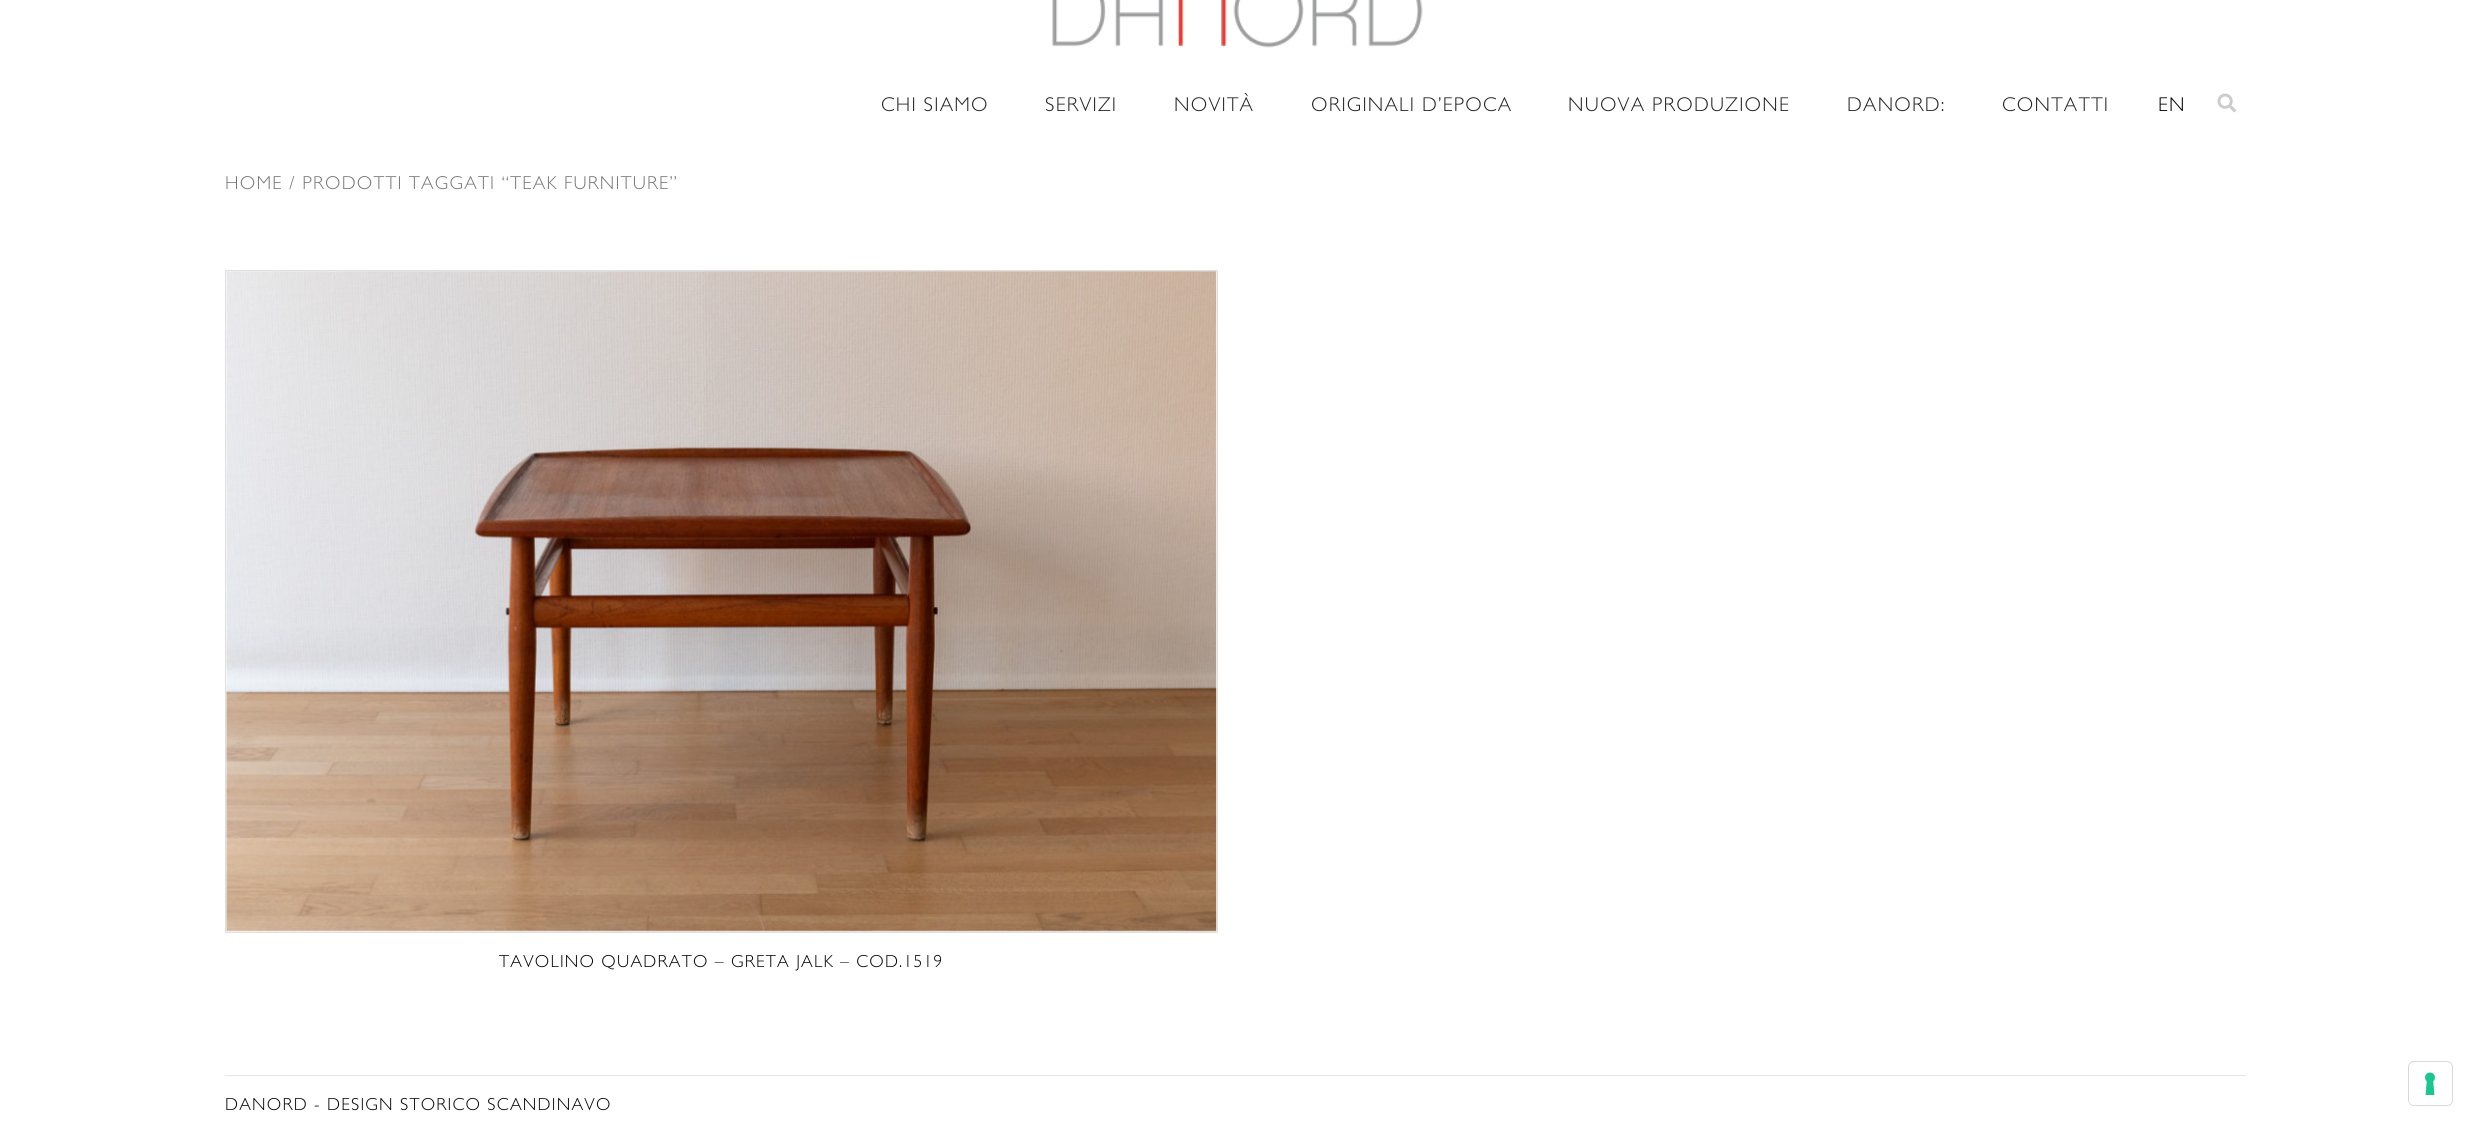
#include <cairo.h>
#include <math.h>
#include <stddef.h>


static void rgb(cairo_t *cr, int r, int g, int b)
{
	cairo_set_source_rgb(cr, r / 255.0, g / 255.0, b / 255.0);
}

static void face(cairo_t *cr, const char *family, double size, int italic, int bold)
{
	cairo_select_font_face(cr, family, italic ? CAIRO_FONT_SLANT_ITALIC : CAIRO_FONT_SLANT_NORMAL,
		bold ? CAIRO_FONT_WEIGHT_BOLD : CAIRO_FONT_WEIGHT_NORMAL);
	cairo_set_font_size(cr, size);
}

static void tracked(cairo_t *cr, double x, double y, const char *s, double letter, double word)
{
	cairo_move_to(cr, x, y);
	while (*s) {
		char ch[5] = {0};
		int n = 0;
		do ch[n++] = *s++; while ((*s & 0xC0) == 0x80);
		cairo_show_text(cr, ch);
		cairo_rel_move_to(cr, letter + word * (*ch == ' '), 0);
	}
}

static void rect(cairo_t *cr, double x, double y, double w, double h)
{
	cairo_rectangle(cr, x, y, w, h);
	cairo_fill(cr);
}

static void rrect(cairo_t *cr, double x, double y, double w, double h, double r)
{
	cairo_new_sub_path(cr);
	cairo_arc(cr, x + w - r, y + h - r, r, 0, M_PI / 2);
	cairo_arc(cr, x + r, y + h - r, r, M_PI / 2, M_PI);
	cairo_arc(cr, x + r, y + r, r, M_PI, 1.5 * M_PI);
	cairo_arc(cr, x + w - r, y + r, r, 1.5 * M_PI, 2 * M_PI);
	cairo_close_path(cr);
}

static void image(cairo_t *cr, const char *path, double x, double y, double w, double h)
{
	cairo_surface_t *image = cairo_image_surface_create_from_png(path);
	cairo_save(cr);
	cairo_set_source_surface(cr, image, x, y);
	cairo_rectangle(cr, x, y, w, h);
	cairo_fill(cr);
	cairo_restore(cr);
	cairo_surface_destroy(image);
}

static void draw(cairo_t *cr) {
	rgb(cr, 255, 255, 255);
	cairo_paint(cr);
	image(cr, "image0.png", 1052, 0, 371, 48);
	face(cr, "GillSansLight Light", 20, 0, 0);
	rgb(cr, 34, 34, 34);
	tracked(cr, 881, 111, "CHI SIAMO", 1.25, 0);
	tracked(cr, 1045, 111, "SERVIZI", 1.25, 0);
	tracked(cr, 1174, 111, "NOVITÀ", 1.25, 0);
	tracked(cr, 1311, 111, "ORIGINALI D’EPOCA", 1.25, 0);
	tracked(cr, 1568, 111, "NUOVA PRODUZIONE", 1.25, 0);
	tracked(cr, 1847, 111, "DANORD:", 1.25, 0);
	tracked(cr, 2002, 111, "CONTATTI", 1.25, 0);
	rgb(cr, 2, 2, 2);
	tracked(cr, 2158, 111, "EN", 1.25, 0);
	image(cr, "image1.png", 2217, 93, 20, 20);
	face(cr, "GillSansLight Light", 18.75, 0, 0);
	rgb(cr, 118, 118, 118);
	tracked(cr, 225, 189, "HOME / PRODOTTI TAGGATI “TEAK FURNITURE”", 1.25, 0);
	image(cr, "image2.png", 226, 271, 991, 661);
	cairo_rectangle(cr, 225.5, 270.5, 992, 662);
	rgb(cr, 223, 223, 223);
	cairo_set_line_width(cr, 1);
	cairo_stroke(cr);
	face(cr, "GillSansLight Light", 17.5, 0, 0);
	rgb(cr, 2, 2, 2);
	tracked(cr, 499, 967, "TAVOLINO QUADRATO – GRETA JALK – COD.1519", 1.25, 0);
	rgb(cr, 229, 229, 229);
	rect(cr, 225, 1075, 2021, 1);
	rgb(cr, 2, 2, 2);
	tracked(cr, 225, 1110, "DANORD - DESIGN STORICO SCANDINAVO", 1.25, 0);
	rrect(cr, 2408.5, 1061.5, 44, 44, 5.5);
	rgb(cr, 217, 217, 217);
	cairo_stroke(cr);
	rgb(cr, 255, 255, 255);
	rrect(cr, 2409, 1063, 42, 42, 5);
	cairo_fill(cr);
	image(cr, "image3.png", 2425, 1072, 10, 23);
}

int main(void) {
	cairo_surface_t *surface = cairo_image_surface_create(CAIRO_FORMAT_RGB24, 2471, 1124);
	cairo_t *cr = cairo_create(surface);
	cairo_font_options_t *options = cairo_font_options_create();
	cairo_font_options_set_hint_metrics(options, CAIRO_HINT_METRICS_OFF);
	cairo_font_options_set_hint_style(options, CAIRO_HINT_STYLE_NONE);
	cairo_set_font_options(cr, options);
	cairo_set_miter_limit(cr, 4);
	draw(cr);
	cairo_surface_write_to_png(surface, "render.png");
	cairo_font_options_destroy(options);
	cairo_destroy(cr);
	cairo_surface_destroy(surface);
	return 0;
}
